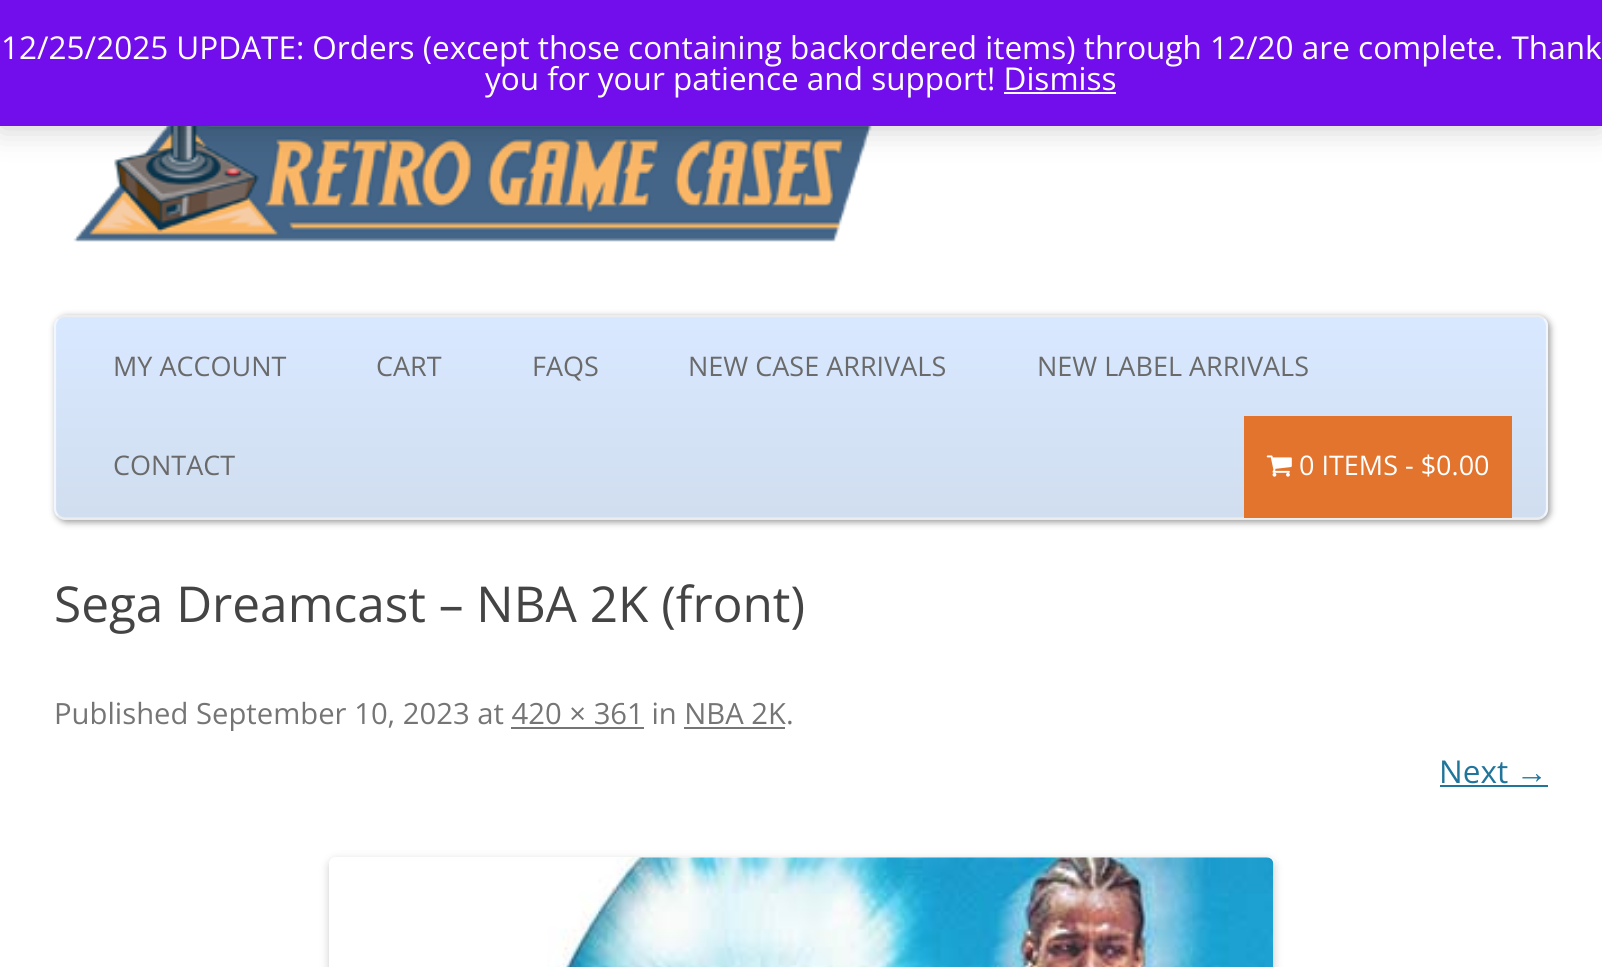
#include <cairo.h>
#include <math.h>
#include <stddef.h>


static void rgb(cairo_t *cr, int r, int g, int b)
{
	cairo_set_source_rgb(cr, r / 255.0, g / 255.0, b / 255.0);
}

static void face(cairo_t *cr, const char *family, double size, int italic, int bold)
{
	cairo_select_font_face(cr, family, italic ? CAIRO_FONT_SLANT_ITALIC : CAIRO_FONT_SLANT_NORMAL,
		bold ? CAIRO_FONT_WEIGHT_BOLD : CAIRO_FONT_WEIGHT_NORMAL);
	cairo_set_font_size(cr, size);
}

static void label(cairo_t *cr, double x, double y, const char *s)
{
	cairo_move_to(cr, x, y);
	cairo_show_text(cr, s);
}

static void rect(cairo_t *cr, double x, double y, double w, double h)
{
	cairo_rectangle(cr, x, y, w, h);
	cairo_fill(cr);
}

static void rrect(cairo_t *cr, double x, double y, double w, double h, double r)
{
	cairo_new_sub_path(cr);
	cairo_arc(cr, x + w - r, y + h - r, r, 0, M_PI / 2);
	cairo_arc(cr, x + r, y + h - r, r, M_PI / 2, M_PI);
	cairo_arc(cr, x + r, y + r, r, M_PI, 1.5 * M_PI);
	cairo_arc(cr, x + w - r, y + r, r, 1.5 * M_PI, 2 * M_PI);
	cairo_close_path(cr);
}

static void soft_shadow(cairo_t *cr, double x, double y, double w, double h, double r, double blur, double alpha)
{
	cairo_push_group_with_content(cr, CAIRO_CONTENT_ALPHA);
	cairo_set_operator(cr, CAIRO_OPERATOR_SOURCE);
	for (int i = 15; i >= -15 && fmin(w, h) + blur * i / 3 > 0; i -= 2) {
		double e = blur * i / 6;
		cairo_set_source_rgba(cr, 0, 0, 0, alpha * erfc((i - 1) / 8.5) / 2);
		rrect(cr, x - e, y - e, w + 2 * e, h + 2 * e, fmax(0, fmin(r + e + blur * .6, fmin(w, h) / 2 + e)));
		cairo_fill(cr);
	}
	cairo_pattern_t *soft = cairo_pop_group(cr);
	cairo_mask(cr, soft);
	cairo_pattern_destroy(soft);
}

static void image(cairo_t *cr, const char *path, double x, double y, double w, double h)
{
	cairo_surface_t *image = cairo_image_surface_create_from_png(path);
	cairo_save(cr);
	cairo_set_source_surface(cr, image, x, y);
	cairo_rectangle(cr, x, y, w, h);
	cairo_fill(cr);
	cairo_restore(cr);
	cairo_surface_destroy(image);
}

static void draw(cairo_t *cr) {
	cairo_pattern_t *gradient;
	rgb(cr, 255, 255, 255);
	cairo_paint(cr);
	image(cr, "image0.png", 73, 126, 799, 116);
	rgb(cr, 0, 0, 0);
	soft_shadow(cr, 0, 2, 1602, 126, 0, 16, 0.2);
	rgb(cr, 114, 14, 236);
	rect(cr, 0, 0, 1602, 126);
	face(cr, "Open Sans", 31.5, 0, 0);
	rgb(cr, 255, 255, 255);
	label(cr, 1, 59, "12/25/2025 UPDATE: Orders (except those containing backordered items) through 12/20 are complete. Thank");
	label(cr, 485, 90, "you for your patience and support! Dismiss");
	rgb(cr, 252, 251, 254);
	rect(cr, 1004, 92, 112, 2);
	rgb(cr, 150, 150, 150);
	soft_shadow(cr, 56, 317, 1494, 205, 11, 3.5, 1);
	cairo_save(cr);
	rrect(cr, 54, 315, 1494, 205, 11);
	cairo_clip(cr);
	gradient = cairo_pattern_create_linear(801, 317, 801, 518);
	cairo_pattern_add_color_stop_rgba(gradient, 0.01, 0.847, 0.91, 1, 1);
	cairo_pattern_add_color_stop_rgba(gradient, 0.98, 0.82, 0.871, 0.941, 1);
	cairo_set_source(cr, gradient);
	cairo_pattern_destroy(gradient);
	rect(cr, 54, 317, 1494, 201);
	gradient = cairo_pattern_create_linear(801, 517, 801, 718);
	cairo_pattern_add_color_stop_rgba(gradient, 0.01, 0.847, 0.91, 1, 1);
	cairo_pattern_add_color_stop_rgba(gradient, 0.98, 0.82, 0.871, 0.941, 1);
	cairo_set_source(cr, gradient);
	cairo_pattern_destroy(gradient);
	rect(cr, 54, 518, 1494, 2);
	cairo_restore(cr);
	cairo_new_path(cr);
	cairo_move_to(cr, 58, 319);
	cairo_curve_to(cr, 60, 317, 62.5, 316, 65, 316);
	cairo_line_to(cr, 1537, 316);
	cairo_curve_to(cr, 1539.5, 316, 1542, 317, 1544, 319);
	rgb(cr, 237, 237, 237);
	cairo_set_line_width(cr, 2.2);
	cairo_stroke(cr);
	cairo_new_path(cr);
	cairo_move_to(cr, 1544, 319);
	cairo_curve_to(cr, 1546, 321, 1547, 323.5, 1547, 326);
	cairo_line_to(cr, 1547, 508.5);
	cairo_curve_to(cr, 1547, 511, 1546, 514, 1544, 515.5);
	rgb(cr, 242, 247, 255);
	cairo_stroke(cr);
	cairo_new_path(cr);
	cairo_move_to(cr, 1544, 515.5);
	cairo_curve_to(cr, 1542, 517.5, 1539.5, 518.5, 1537, 518.5);
	cairo_line_to(cr, 65, 518.5);
	cairo_curve_to(cr, 62.5, 518.5, 60, 517.5, 58, 515.5);
	rgb(cr, 237, 237, 237);
	cairo_stroke(cr);
	cairo_new_path(cr);
	cairo_move_to(cr, 58, 515.5);
	cairo_curve_to(cr, 56, 514, 55, 511, 55, 508.5);
	cairo_line_to(cr, 55, 326);
	cairo_curve_to(cr, 55, 323.5, 56, 321, 58, 319);
	rgb(cr, 242, 247, 255);
	cairo_stroke(cr);
	face(cr, "Open Sans", 27, 0, 0);
	rgb(cr, 106, 106, 106);
	label(cr, 113, 376, "MY ACCOUNT");
	label(cr, 376, 376, "CART");
	label(cr, 532, 376, "FAQS");
	label(cr, 688, 376, "NEW CASE ARRIVALS");
	label(cr, 1037, 376, "NEW LABEL ARRIVALS");
	label(cr, 113, 475, "CONTACT");
	rgb(cr, 226, 116, 46);
	rect(cr, 1244, 416, 268, 102);
	image(cr, "image1.png", 1266, 455, 26, 22);
	rgb(cr, 255, 255, 255);
	label(cr, 1299, 475, "0 ITEMS - $0.00");
	face(cr, "Open Sans", 49.5, 0, 0);
	rgb(cr, 68, 68, 68);
	label(cr, 54, 622, "Sega Dreamcast – NBA 2K (front)");
	face(cr, "Open Sans", 29.25, 0, 0);
	rgb(cr, 117, 117, 117);
	label(cr, 54, 724, "Published September 10, 2023 at 420 × 361 in NBA 2K.");
	rect(cr, 511, 727, 133, 2);
	rect(cr, 684, 727, 101, 2);
	face(cr, "Open Sans", 31.5, 0, 0);
	rgb(cr, 33, 117, 155);
	label(cr, 1439, 783, "Next");
	face(cr, "Liberation Sans", 31.5, 0, 0);
	label(cr, 1516, 783, "→");
	rect(cr, 1440, 785, 108, 2);
	cairo_save(cr);
	cairo_set_fill_rule(cr, CAIRO_FILL_RULE_EVEN_ODD);
	cairo_new_path(cr);
	cairo_move_to(cr, 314, 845);
	cairo_line_to(cr, 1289, 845);
	cairo_line_to(cr, 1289, 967);
	cairo_line_to(cr, 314, 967);
	cairo_close_path(cr);
	cairo_move_to(cr, 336, 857);
	cairo_line_to(cr, 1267, 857);
	cairo_curve_to(cr, 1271, 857, 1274, 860, 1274, 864);
	cairo_line_to(cr, 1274, 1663);
	cairo_curve_to(cr, 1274, 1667, 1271, 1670, 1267, 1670);
	cairo_line_to(cr, 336, 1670);
	cairo_curve_to(cr, 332, 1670, 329, 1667, 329, 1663);
	cairo_line_to(cr, 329, 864);
	cairo_curve_to(cr, 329, 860, 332, 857, 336, 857);
	cairo_close_path(cr);
	cairo_clip(cr);
	rgb(cr, 0, 0, 0);
	soft_shadow(cr, 329, 860, 945, 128, 7, 4.5, 0.2);
	cairo_restore(cr);
	image(cr, "image2.png", 547, 857, 727, 110);
}

int main(void) {
	cairo_surface_t *surface = cairo_image_surface_create(CAIRO_FORMAT_RGB24, 1602, 967);
	cairo_t *cr = cairo_create(surface);
	cairo_font_options_t *options = cairo_font_options_create();
	cairo_font_options_set_hint_metrics(options, CAIRO_HINT_METRICS_OFF);
	cairo_font_options_set_hint_style(options, CAIRO_HINT_STYLE_NONE);
	cairo_set_font_options(cr, options);
	cairo_set_miter_limit(cr, 4);
	draw(cr);
	cairo_surface_write_to_png(surface, "render.png");
	cairo_font_options_destroy(options);
	cairo_destroy(cr);
	cairo_surface_destroy(surface);
	return 0;
}
